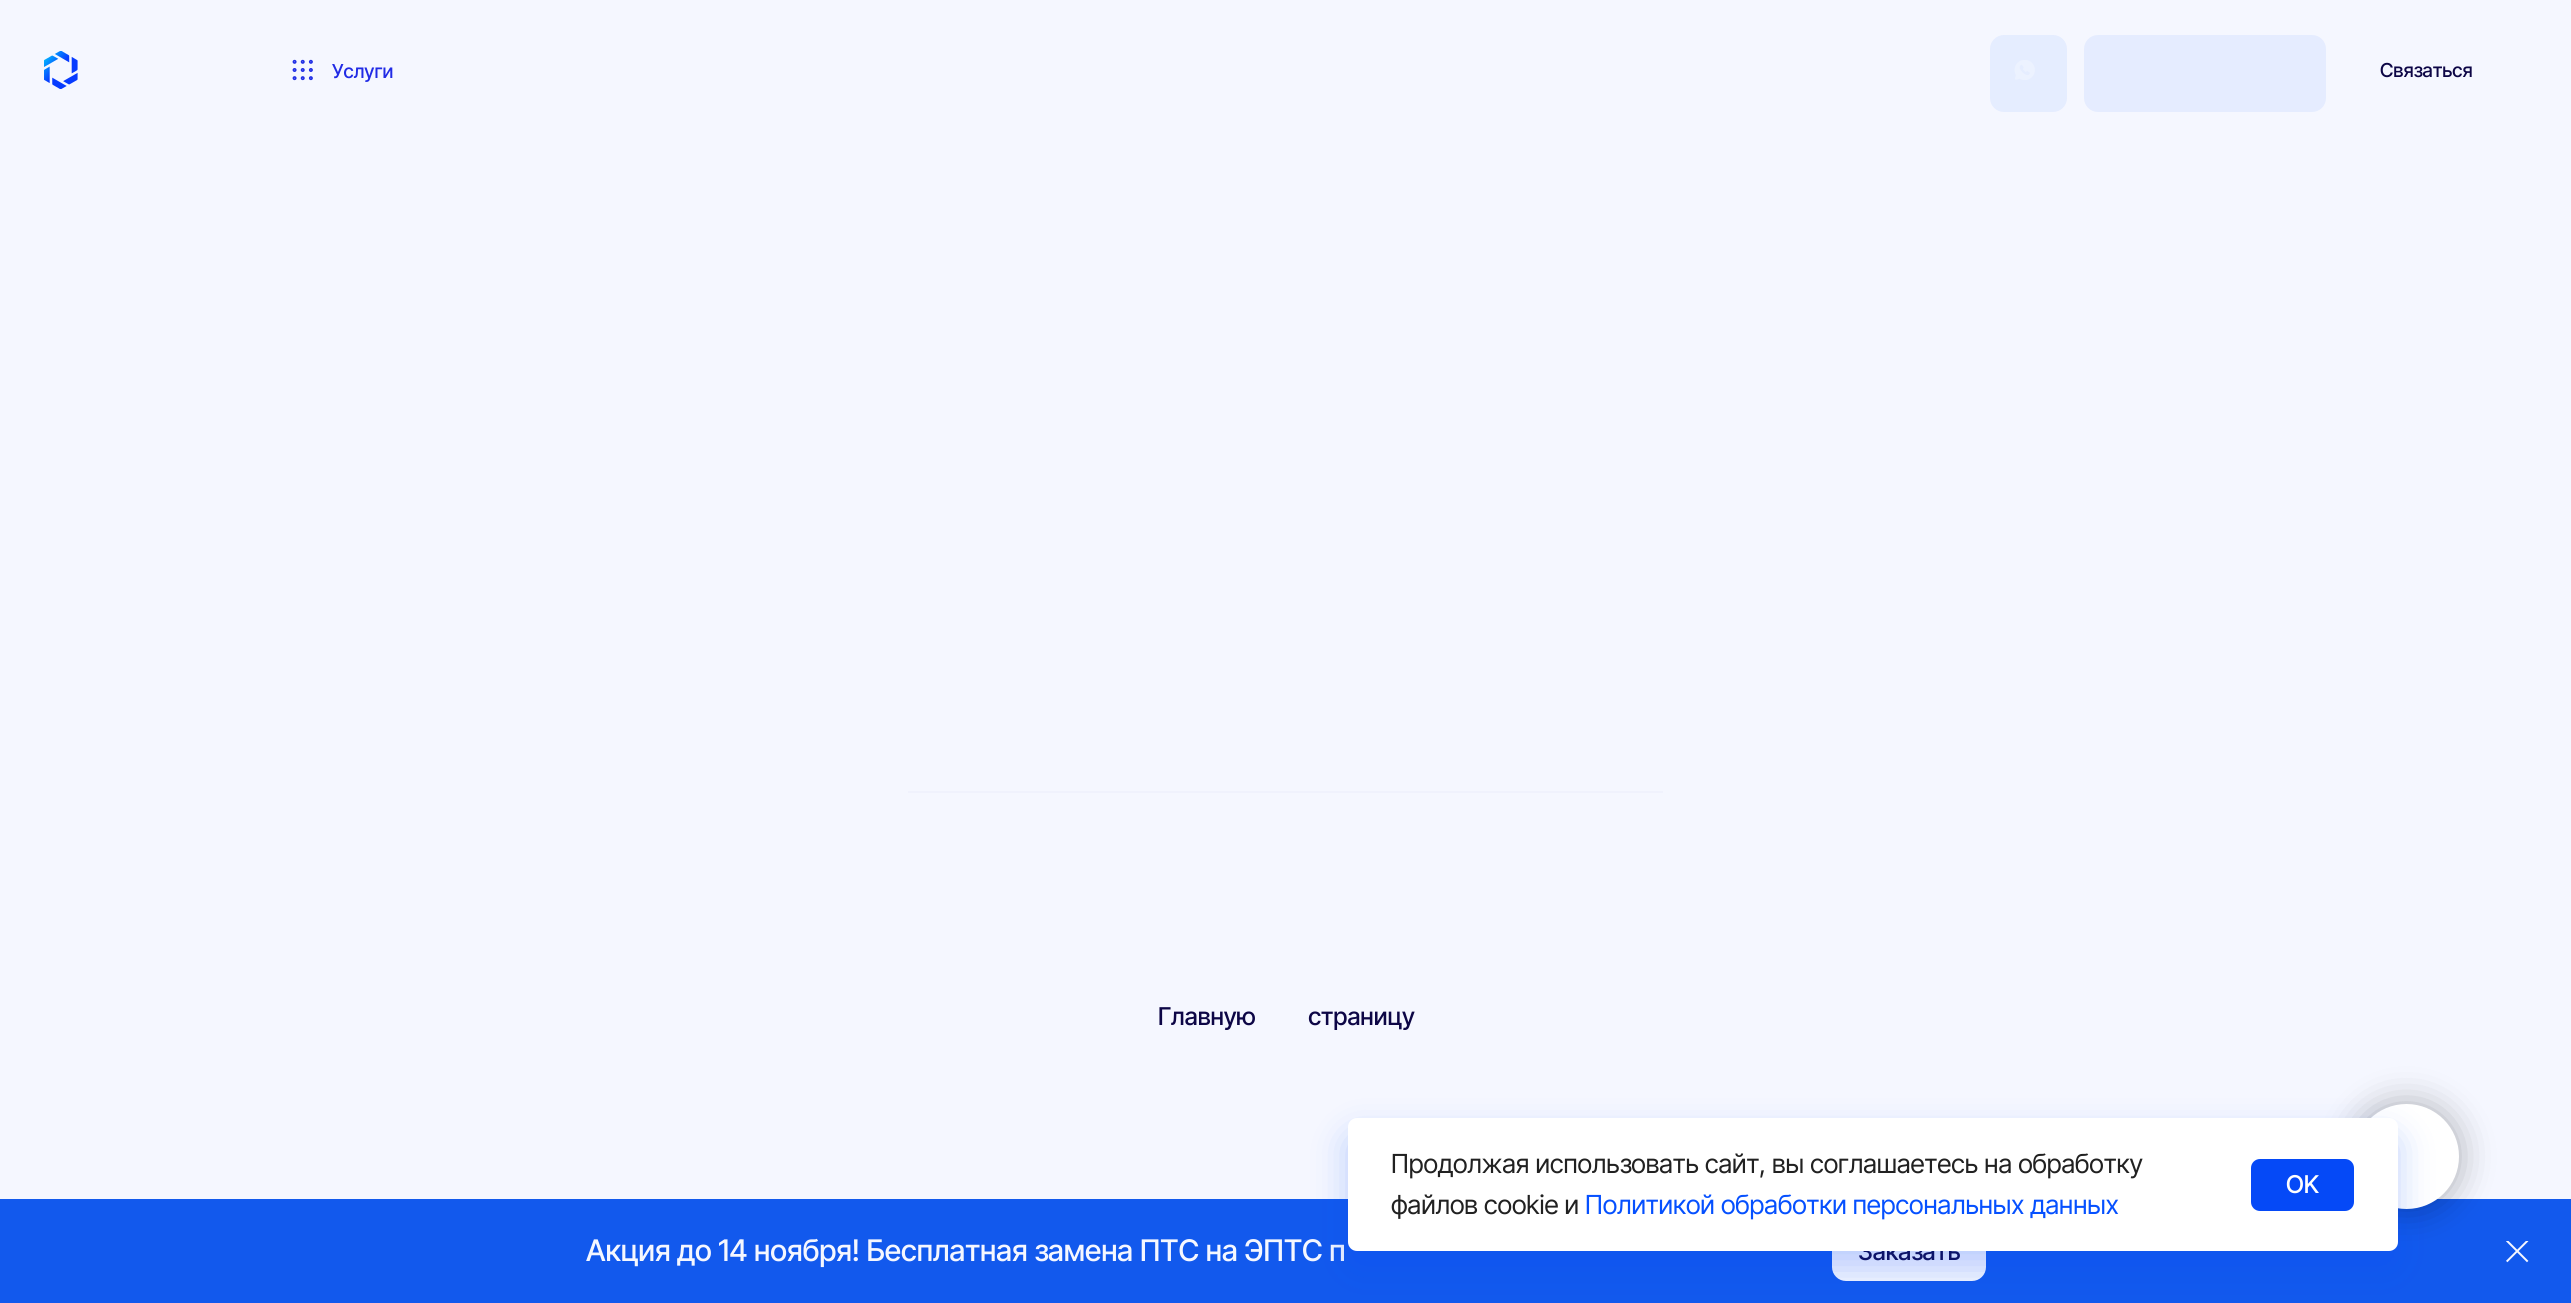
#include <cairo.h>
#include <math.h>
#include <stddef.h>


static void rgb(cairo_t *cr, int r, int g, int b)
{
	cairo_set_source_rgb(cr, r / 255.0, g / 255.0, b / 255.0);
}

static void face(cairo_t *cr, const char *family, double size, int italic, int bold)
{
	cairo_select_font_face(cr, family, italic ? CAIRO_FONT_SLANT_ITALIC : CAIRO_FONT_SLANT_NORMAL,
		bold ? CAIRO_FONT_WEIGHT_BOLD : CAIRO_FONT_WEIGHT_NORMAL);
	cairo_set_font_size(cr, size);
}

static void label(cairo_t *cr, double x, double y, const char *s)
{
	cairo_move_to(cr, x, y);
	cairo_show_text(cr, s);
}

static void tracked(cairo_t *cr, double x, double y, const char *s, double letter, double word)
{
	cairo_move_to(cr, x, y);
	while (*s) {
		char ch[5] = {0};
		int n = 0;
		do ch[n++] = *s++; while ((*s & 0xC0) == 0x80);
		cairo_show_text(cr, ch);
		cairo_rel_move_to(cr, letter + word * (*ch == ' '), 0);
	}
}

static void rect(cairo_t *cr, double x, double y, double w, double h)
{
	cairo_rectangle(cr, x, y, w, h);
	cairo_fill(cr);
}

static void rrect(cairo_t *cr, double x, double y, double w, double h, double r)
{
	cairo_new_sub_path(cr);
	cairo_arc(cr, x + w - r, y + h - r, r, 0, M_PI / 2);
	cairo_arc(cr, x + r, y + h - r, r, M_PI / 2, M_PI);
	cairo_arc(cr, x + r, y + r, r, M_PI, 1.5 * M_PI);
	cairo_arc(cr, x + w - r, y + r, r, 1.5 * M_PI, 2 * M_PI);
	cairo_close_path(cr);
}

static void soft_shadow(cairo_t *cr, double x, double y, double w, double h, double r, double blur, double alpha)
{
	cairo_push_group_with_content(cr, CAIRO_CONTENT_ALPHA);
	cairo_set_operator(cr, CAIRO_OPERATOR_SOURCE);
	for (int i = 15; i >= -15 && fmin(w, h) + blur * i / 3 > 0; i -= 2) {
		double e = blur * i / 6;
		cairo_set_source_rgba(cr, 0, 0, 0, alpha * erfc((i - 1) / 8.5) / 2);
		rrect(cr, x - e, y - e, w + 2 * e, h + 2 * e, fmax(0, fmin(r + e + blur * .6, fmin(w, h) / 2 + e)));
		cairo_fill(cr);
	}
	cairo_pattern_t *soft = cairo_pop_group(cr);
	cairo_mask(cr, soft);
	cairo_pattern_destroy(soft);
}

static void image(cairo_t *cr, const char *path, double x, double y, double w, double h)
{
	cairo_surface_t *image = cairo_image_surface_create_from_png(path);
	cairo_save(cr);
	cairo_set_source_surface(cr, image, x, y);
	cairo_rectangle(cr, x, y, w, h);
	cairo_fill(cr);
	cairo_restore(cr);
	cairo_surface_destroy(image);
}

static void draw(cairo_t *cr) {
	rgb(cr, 245, 247, 255);
	cairo_paint(cr);
	image(cr, "image0.png", 44, 51, 34, 38);
	image(cr, "image1.png", 292, 59, 21, 22);
	face(cr, "Inter Tight Medium", 19.25, 0, 0);
	rgb(cr, 33, 43, 229);
	label(cr, 332, 78, "Услуги");
	image(cr, "image2.png", 2014, 60, 21, 20);
	cairo_set_source_rgba(cr, 0.761, 0.831, 1, 0.32);
	rrect(cr, 1990, 35, 77, 77, 14);
	cairo_fill(cr);
	rgb(cr, 229, 236, 255);
	rrect(cr, 2084, 35, 242, 77, 14);
	cairo_fill(cr);
	rgb(cr, 13, 6, 70);
	label(cr, 2380, 77, "Связаться");
	rgb(cr, 18, 89, 237);
	rect(cr, 0, 1199, 2571, 104);
	face(cr, "Inter Tight Medium", 29.75, 0, 0);
	rgb(cr, 245, 247, 255);
	label(cr, 586, 1261, "Акция до 14 ноября! Бесплатная замена ПТС на ЭПТС п");
	rrect(cr, 1832, 1222, 154, 59, 14);
	cairo_fill(cr);
	face(cr, "Inter Tight Medium", 24.5, 0, 0);
	rgb(cr, 13, 6, 70);
	label(cr, 1858, 1260, "Заказать");
	image(cr, "image3.png", 2506, 1241, 23, 22);
	rgb(cr, 0, 0, 0);
	soft_shadow(cr, 2354, 1104, 105, 105, 52.5, 17.5, 0.3);
	rgb(cr, 255, 255, 255);
	cairo_arc(cr, 2406.5, 1156.5, 52.5, 0, 2 * M_PI);
	cairo_fill(cr);
	rgb(cr, 240, 242, 253);
	rect(cr, 908, 791, 755, 2);
	rgb(cr, 13, 6, 70);
	tracked(cr, 1158, 1025, "Главную страницу", 0, 47);
	rgb(cr, 5, 73, 247);
	soft_shadow(cr, 1348, 1136, 1050, 133, 9, 17.5, 0.25);
	rgb(cr, 255, 255, 255);
	rrect(cr, 1348, 1118, 1050, 133, 9);
	cairo_fill(cr);
	face(cr, "Inter Tight", 26.25, 0, 0);
	rgb(cr, 33, 33, 33);
	label(cr, 1391, 1173, "Продолжая использовать сайт, вы соглашаетесь на обработку");
	label(cr, 1391, 1214, "файлов cookie и");
	rgb(cr, 5, 80, 255);
	label(cr, 1585, 1214, "Политикой обработки персональных данных");
	rgb(cr, 5, 73, 247);
	rrect(cr, 2251, 1159, 103, 52, 9);
	cairo_fill(cr);
	face(cr, "Inter Tight Medium", 24.5, 0, 0);
	rgb(cr, 255, 255, 255);
	label(cr, 2286, 1193, "OK");
}

int main(void) {
	cairo_surface_t *surface = cairo_image_surface_create(CAIRO_FORMAT_RGB24, 2571, 1303);
	cairo_t *cr = cairo_create(surface);
	cairo_font_options_t *options = cairo_font_options_create();
	cairo_font_options_set_hint_metrics(options, CAIRO_HINT_METRICS_OFF);
	cairo_font_options_set_hint_style(options, CAIRO_HINT_STYLE_NONE);
	cairo_set_font_options(cr, options);
	cairo_set_miter_limit(cr, 4);
	draw(cr);
	cairo_surface_write_to_png(surface, "render.png");
	cairo_font_options_destroy(options);
	cairo_destroy(cr);
	cairo_surface_destroy(surface);
	return 0;
}
